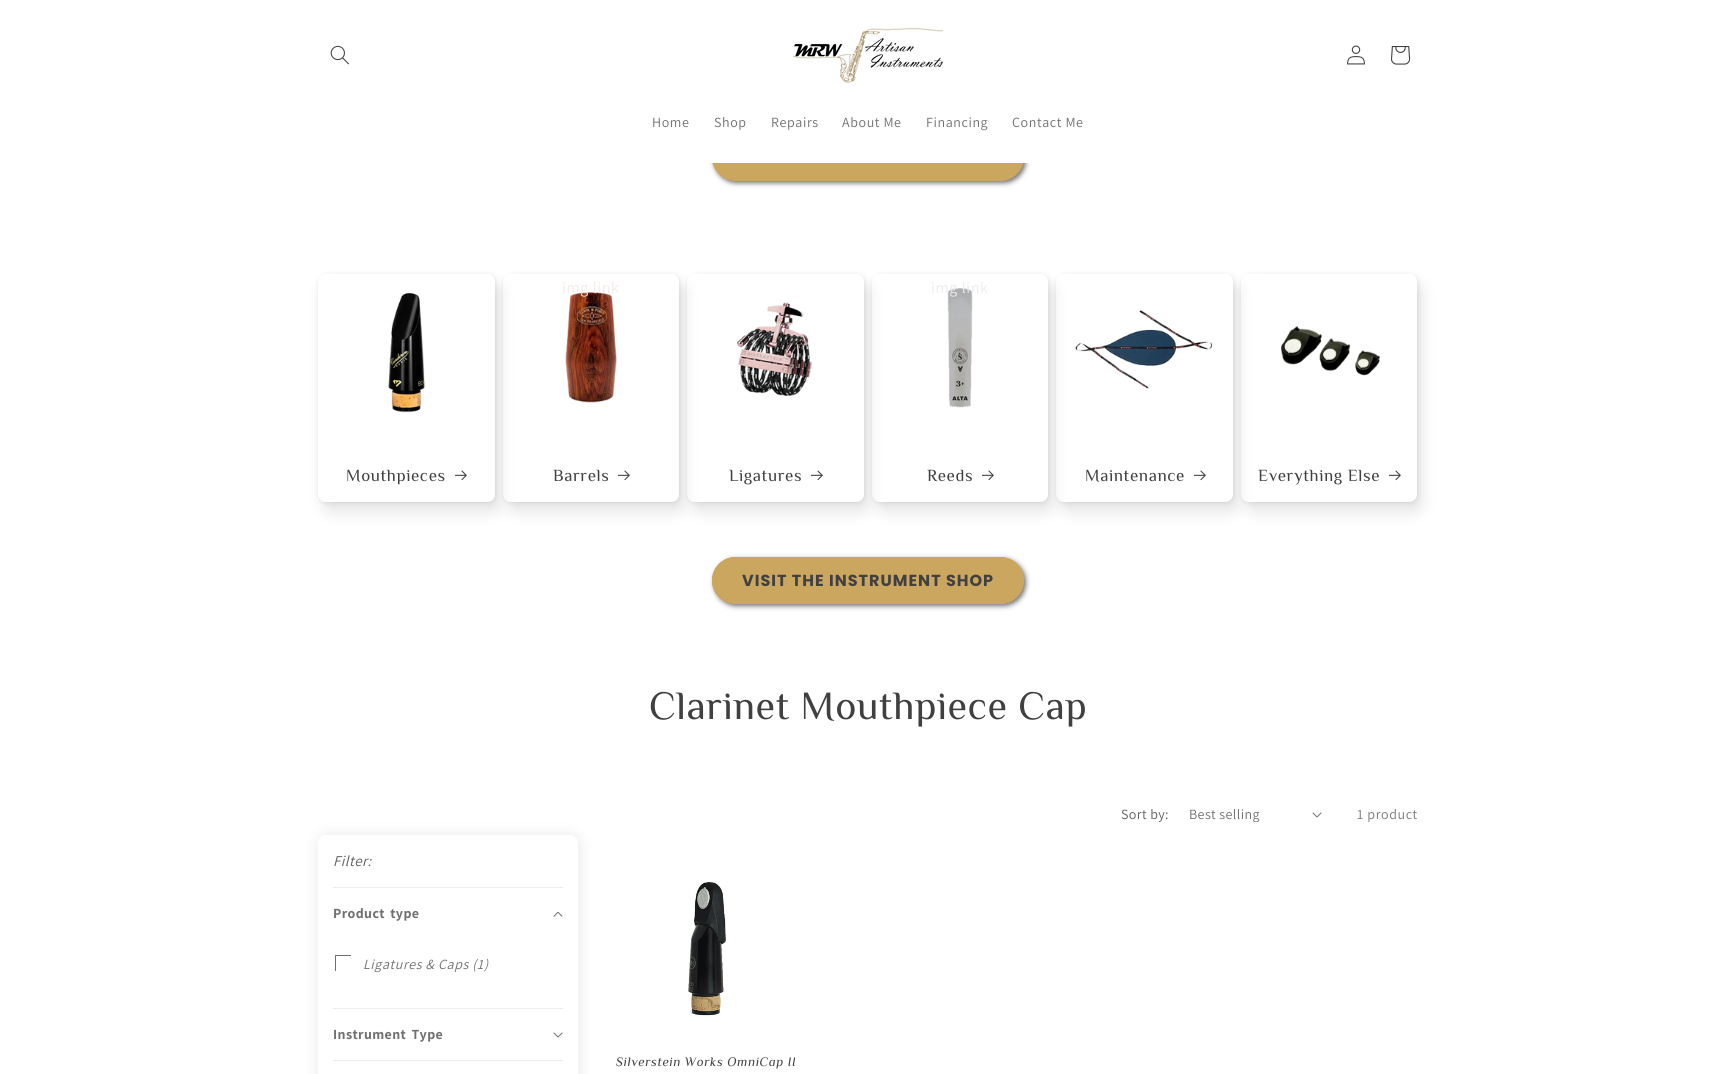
#include <cairo.h>
#include <math.h>
#include <stddef.h>


static void rgb(cairo_t *cr, int r, int g, int b)
{
	cairo_set_source_rgb(cr, r / 255.0, g / 255.0, b / 255.0);
}

static void face(cairo_t *cr, const char *family, double size, int italic, int bold)
{
	cairo_select_font_face(cr, family, italic ? CAIRO_FONT_SLANT_ITALIC : CAIRO_FONT_SLANT_NORMAL,
		bold ? CAIRO_FONT_WEIGHT_BOLD : CAIRO_FONT_WEIGHT_NORMAL);
	cairo_set_font_size(cr, size);
}

static void tracked(cairo_t *cr, double x, double y, const char *s, double letter, double word)
{
	cairo_move_to(cr, x, y);
	while (*s) {
		char ch[5] = {0};
		int n = 0;
		do ch[n++] = *s++; while ((*s & 0xC0) == 0x80);
		cairo_show_text(cr, ch);
		cairo_rel_move_to(cr, letter + word * (*ch == ' '), 0);
	}
}

static void rect(cairo_t *cr, double x, double y, double w, double h)
{
	cairo_rectangle(cr, x, y, w, h);
	cairo_fill(cr);
}

static void rrect(cairo_t *cr, double x, double y, double w, double h, double r)
{
	cairo_new_sub_path(cr);
	cairo_arc(cr, x + w - r, y + h - r, r, 0, M_PI / 2);
	cairo_arc(cr, x + r, y + h - r, r, M_PI / 2, M_PI);
	cairo_arc(cr, x + r, y + r, r, M_PI, 1.5 * M_PI);
	cairo_arc(cr, x + w - r, y + r, r, 1.5 * M_PI, 2 * M_PI);
	cairo_close_path(cr);
}

static void soft_shadow(cairo_t *cr, double x, double y, double w, double h, double r, double blur, double alpha)
{
	cairo_push_group_with_content(cr, CAIRO_CONTENT_ALPHA);
	cairo_set_operator(cr, CAIRO_OPERATOR_SOURCE);
	for (int i = 15; i >= -15 && fmin(w, h) + blur * i / 3 > 0; i -= 2) {
		double e = blur * i / 6;
		cairo_set_source_rgba(cr, 0, 0, 0, alpha * erfc((i - 1) / 8.5) / 2);
		rrect(cr, x - e, y - e, w + 2 * e, h + 2 * e, fmax(0, fmin(r + e + blur * .6, fmin(w, h) / 2 + e)));
		cairo_fill(cr);
	}
	cairo_pattern_t *soft = cairo_pop_group(cr);
	cairo_mask(cr, soft);
	cairo_pattern_destroy(soft);
}

static void image(cairo_t *cr, const char *path, double x, double y, double w, double h)
{
	cairo_surface_t *image = cairo_image_surface_create_from_png(path);
	cairo_save(cr);
	cairo_set_source_surface(cr, image, x, y);
	cairo_rectangle(cr, x, y, w, h);
	cairo_fill(cr);
	cairo_restore(cr);
	cairo_surface_destroy(image);
}

static void draw(cairo_t *cr) {
	rgb(cr, 255, 255, 255);
	cairo_paint(cr);
	rgb(cr, 18, 18, 18);
	soft_shadow(cr, 714, 136, 312, 47, 23.5, 2.5, 0.6);
	rgb(cr, 203, 166, 95);
	rrect(cr, 712.5, 134.5, 311, 46, 23);
	cairo_fill_preserve(cr);
	cairo_set_line_width(cr, 1);
	cairo_stroke(cr);
	rgb(cr, 255, 255, 255);
	rect(cr, 709, 131, 322, 32);
	image(cr, "image0.png", 330, 45, 19, 20);
	image(cr, "image1.png", 793, 28, 150, 55);
	image(cr, "image2.png", 1347, 45, 18, 20);
	image(cr, "image3.png", 1391, 46, 20, 19);
	face(cr, "Assistant", 14, 0, 0);
	rgb(cr, 113, 112, 112);
	tracked(cr, 652, 127, "Home", 0.6, 0);
	tracked(cr, 714, 127, "Shop", 0.6, 0);
	tracked(cr, 771, 127, "Repairs", 0.6, 0);
	tracked(cr, 842, 127, "About Me", 0.6, 0);
	tracked(cr, 926, 127, "Financing", 0.6, 0);
	tracked(cr, 1012, 127, "Contact Me", 0.6, 0);
	cairo_save(cr);
	cairo_set_fill_rule(cr, CAIRO_FILL_RULE_EVEN_ODD);
	cairo_new_path(cr);
	cairo_move_to(cr, 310, 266);
	cairo_line_to(cr, 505, 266);
	cairo_line_to(cr, 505, 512);
	cairo_line_to(cr, 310, 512);
	cairo_close_path(cr);
	cairo_move_to(cr, 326, 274);
	cairo_line_to(cr, 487, 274);
	cairo_curve_to(cr, 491.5, 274, 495, 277.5, 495, 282);
	cairo_line_to(cr, 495, 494);
	cairo_curve_to(cr, 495, 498.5, 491.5, 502, 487, 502);
	cairo_line_to(cr, 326, 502);
	cairo_curve_to(cr, 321.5, 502, 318, 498.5, 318, 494);
	cairo_line_to(cr, 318, 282);
	cairo_curve_to(cr, 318, 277.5, 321.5, 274, 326, 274);
	cairo_close_path(cr);
	cairo_clip(cr);
	rgb(cr, 0, 0, 0);
	soft_shadow(cr, 319, 275, 177, 228, 8, 2.5, 0.1);
	cairo_restore(cr);
	cairo_save(cr);
	cairo_set_fill_rule(cr, CAIRO_FILL_RULE_EVEN_ODD);
	cairo_new_path(cr);
	cairo_move_to(cr, 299, 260);
	cairo_line_to(cr, 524, 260);
	cairo_line_to(cr, 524, 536);
	cairo_line_to(cr, 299, 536);
	cairo_close_path(cr);
	cairo_move_to(cr, 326, 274);
	cairo_line_to(cr, 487, 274);
	cairo_curve_to(cr, 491.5, 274, 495, 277.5, 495, 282);
	cairo_line_to(cr, 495, 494);
	cairo_curve_to(cr, 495, 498.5, 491.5, 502, 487, 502);
	cairo_line_to(cr, 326, 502);
	cairo_curve_to(cr, 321.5, 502, 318, 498.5, 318, 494);
	cairo_line_to(cr, 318, 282);
	cairo_curve_to(cr, 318, 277.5, 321.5, 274, 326, 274);
	cairo_close_path(cr);
	cairo_clip(cr);
	rgb(cr, 0, 0, 0);
	soft_shadow(cr, 323, 284, 177, 228, 8, 7.5, 0.1);
	cairo_restore(cr);
	image(cr, "image4.png", 388, 292, 37, 121);
	face(cr, "Philosopher", 17, 0, 0);
	rgb(cr, 65, 64, 64);
	tracked(cr, 346, 481, "Mouthpieces", 0.6, 0);
	image(cr, "image5.png", 455, 470, 12, 11);
	cairo_save(cr);
	cairo_set_fill_rule(cr, CAIRO_FILL_RULE_EVEN_ODD);
	cairo_new_path(cr);
	cairo_move_to(cr, 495, 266);
	cairo_line_to(cr, 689, 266);
	cairo_line_to(cr, 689, 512);
	cairo_line_to(cr, 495, 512);
	cairo_close_path(cr);
	cairo_move_to(cr, 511, 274);
	cairo_line_to(cr, 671, 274);
	cairo_curve_to(cr, 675.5, 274, 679, 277.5, 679, 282);
	cairo_line_to(cr, 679, 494);
	cairo_curve_to(cr, 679, 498.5, 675.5, 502, 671, 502);
	cairo_line_to(cr, 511, 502);
	cairo_curve_to(cr, 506.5, 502, 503, 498.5, 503, 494);
	cairo_line_to(cr, 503, 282);
	cairo_curve_to(cr, 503, 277.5, 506.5, 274, 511, 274);
	cairo_close_path(cr);
	cairo_clip(cr);
	rgb(cr, 0, 0, 0);
	soft_shadow(cr, 504, 275, 176, 228, 8, 2.5, 0.1);
	cairo_restore(cr);
	cairo_save(cr);
	cairo_set_fill_rule(cr, CAIRO_FILL_RULE_EVEN_ODD);
	cairo_new_path(cr);
	cairo_move_to(cr, 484, 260);
	cairo_line_to(cr, 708, 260);
	cairo_line_to(cr, 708, 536);
	cairo_line_to(cr, 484, 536);
	cairo_close_path(cr);
	cairo_move_to(cr, 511, 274);
	cairo_line_to(cr, 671, 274);
	cairo_curve_to(cr, 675.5, 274, 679, 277.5, 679, 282);
	cairo_line_to(cr, 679, 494);
	cairo_curve_to(cr, 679, 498.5, 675.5, 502, 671, 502);
	cairo_line_to(cr, 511, 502);
	cairo_curve_to(cr, 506.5, 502, 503, 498.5, 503, 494);
	cairo_line_to(cr, 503, 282);
	cairo_curve_to(cr, 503, 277.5, 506.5, 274, 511, 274);
	cairo_close_path(cr);
	cairo_clip(cr);
	rgb(cr, 0, 0, 0);
	soft_shadow(cr, 508, 284, 176, 228, 8, 7.5, 0.1);
	cairo_restore(cr);
	image(cr, "image6.png", 565, 292, 52, 111);
	face(cr, "Assistant", 16, 0, 0);
	rgb(cr, 243, 235, 231);
	tracked(cr, 562, 293, "img link", 0.6, 0);
	face(cr, "Philosopher", 17, 0, 0);
	rgb(cr, 65, 64, 64);
	tracked(cr, 553, 481, "Barrels", 0.6, 0);
	image(cr, "image5.png", 618, 470, 12, 11);
	cairo_save(cr);
	cairo_set_fill_rule(cr, CAIRO_FILL_RULE_EVEN_ODD);
	cairo_new_path(cr);
	cairo_move_to(cr, 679, 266);
	cairo_line_to(cr, 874, 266);
	cairo_line_to(cr, 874, 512);
	cairo_line_to(cr, 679, 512);
	cairo_close_path(cr);
	cairo_move_to(cr, 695, 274);
	cairo_line_to(cr, 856, 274);
	cairo_curve_to(cr, 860.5, 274, 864, 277.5, 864, 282);
	cairo_line_to(cr, 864, 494);
	cairo_curve_to(cr, 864, 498.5, 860.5, 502, 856, 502);
	cairo_line_to(cr, 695, 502);
	cairo_curve_to(cr, 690.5, 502, 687, 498.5, 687, 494);
	cairo_line_to(cr, 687, 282);
	cairo_curve_to(cr, 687, 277.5, 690.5, 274, 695, 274);
	cairo_close_path(cr);
	cairo_clip(cr);
	rgb(cr, 0, 0, 0);
	soft_shadow(cr, 688, 275, 177, 228, 8, 2.5, 0.1);
	cairo_restore(cr);
	cairo_save(cr);
	cairo_set_fill_rule(cr, CAIRO_FILL_RULE_EVEN_ODD);
	cairo_new_path(cr);
	cairo_move_to(cr, 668, 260);
	cairo_line_to(cr, 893, 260);
	cairo_line_to(cr, 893, 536);
	cairo_line_to(cr, 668, 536);
	cairo_close_path(cr);
	cairo_move_to(cr, 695, 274);
	cairo_line_to(cr, 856, 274);
	cairo_curve_to(cr, 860.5, 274, 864, 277.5, 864, 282);
	cairo_line_to(cr, 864, 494);
	cairo_curve_to(cr, 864, 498.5, 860.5, 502, 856, 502);
	cairo_line_to(cr, 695, 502);
	cairo_curve_to(cr, 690.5, 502, 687, 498.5, 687, 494);
	cairo_line_to(cr, 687, 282);
	cairo_curve_to(cr, 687, 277.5, 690.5, 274, 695, 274);
	cairo_close_path(cr);
	cairo_clip(cr);
	rgb(cr, 0, 0, 0);
	soft_shadow(cr, 692, 284, 177, 228, 8, 7.5, 0.1);
	cairo_restore(cr);
	image(cr, "image7.png", 737, 302, 76, 94);
	tracked(cr, 729, 481, "Ligatures", 0.6, 0);
	image(cr, "image5.png", 811, 470, 12, 11);
	cairo_save(cr);
	cairo_set_fill_rule(cr, CAIRO_FILL_RULE_EVEN_ODD);
	cairo_new_path(cr);
	cairo_move_to(cr, 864, 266);
	cairo_line_to(cr, 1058, 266);
	cairo_line_to(cr, 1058, 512);
	cairo_line_to(cr, 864, 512);
	cairo_close_path(cr);
	cairo_move_to(cr, 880, 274);
	cairo_line_to(cr, 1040, 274);
	cairo_curve_to(cr, 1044.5, 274, 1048, 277.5, 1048, 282);
	cairo_line_to(cr, 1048, 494);
	cairo_curve_to(cr, 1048, 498.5, 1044.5, 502, 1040, 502);
	cairo_line_to(cr, 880, 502);
	cairo_curve_to(cr, 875.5, 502, 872, 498.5, 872, 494);
	cairo_line_to(cr, 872, 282);
	cairo_curve_to(cr, 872, 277.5, 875.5, 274, 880, 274);
	cairo_close_path(cr);
	cairo_clip(cr);
	rgb(cr, 0, 0, 0);
	soft_shadow(cr, 873, 275, 176, 228, 8, 2.5, 0.1);
	cairo_restore(cr);
	cairo_save(cr);
	cairo_set_fill_rule(cr, CAIRO_FILL_RULE_EVEN_ODD);
	cairo_new_path(cr);
	cairo_move_to(cr, 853, 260);
	cairo_line_to(cr, 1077, 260);
	cairo_line_to(cr, 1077, 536);
	cairo_line_to(cr, 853, 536);
	cairo_close_path(cr);
	cairo_move_to(cr, 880, 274);
	cairo_line_to(cr, 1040, 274);
	cairo_curve_to(cr, 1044.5, 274, 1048, 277.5, 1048, 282);
	cairo_line_to(cr, 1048, 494);
	cairo_curve_to(cr, 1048, 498.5, 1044.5, 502, 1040, 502);
	cairo_line_to(cr, 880, 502);
	cairo_curve_to(cr, 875.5, 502, 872, 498.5, 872, 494);
	cairo_line_to(cr, 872, 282);
	cairo_curve_to(cr, 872, 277.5, 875.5, 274, 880, 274);
	cairo_close_path(cr);
	cairo_clip(cr);
	rgb(cr, 0, 0, 0);
	soft_shadow(cr, 877, 284, 176, 228, 8, 7.5, 0.1);
	cairo_restore(cr);
	image(cr, "image8.png", 947, 288, 26, 120);
	face(cr, "Assistant", 16, 0, 0);
	rgb(cr, 236, 236, 237);
	tracked(cr, 931, 293, "img link", 0.6, 0);
	face(cr, "Philosopher", 17, 0, 0);
	rgb(cr, 65, 64, 64);
	tracked(cr, 927, 481, "Reeds", 0.6, 0);
	image(cr, "image5.png", 982, 470, 12, 11);
	cairo_save(cr);
	cairo_set_fill_rule(cr, CAIRO_FILL_RULE_EVEN_ODD);
	cairo_new_path(cr);
	cairo_move_to(cr, 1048, 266);
	cairo_line_to(cr, 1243, 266);
	cairo_line_to(cr, 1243, 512);
	cairo_line_to(cr, 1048, 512);
	cairo_close_path(cr);
	cairo_move_to(cr, 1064, 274);
	cairo_line_to(cr, 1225, 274);
	cairo_curve_to(cr, 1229.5, 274, 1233, 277.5, 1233, 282);
	cairo_line_to(cr, 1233, 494);
	cairo_curve_to(cr, 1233, 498.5, 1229.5, 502, 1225, 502);
	cairo_line_to(cr, 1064, 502);
	cairo_curve_to(cr, 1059.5, 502, 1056, 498.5, 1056, 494);
	cairo_line_to(cr, 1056, 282);
	cairo_curve_to(cr, 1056, 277.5, 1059.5, 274, 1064, 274);
	cairo_close_path(cr);
	cairo_clip(cr);
	rgb(cr, 0, 0, 0);
	soft_shadow(cr, 1057, 275, 177, 228, 8, 2.5, 0.1);
	cairo_restore(cr);
	cairo_save(cr);
	cairo_set_fill_rule(cr, CAIRO_FILL_RULE_EVEN_ODD);
	cairo_new_path(cr);
	cairo_move_to(cr, 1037, 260);
	cairo_line_to(cr, 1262, 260);
	cairo_line_to(cr, 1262, 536);
	cairo_line_to(cr, 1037, 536);
	cairo_close_path(cr);
	cairo_move_to(cr, 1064, 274);
	cairo_line_to(cr, 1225, 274);
	cairo_curve_to(cr, 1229.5, 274, 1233, 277.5, 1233, 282);
	cairo_line_to(cr, 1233, 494);
	cairo_curve_to(cr, 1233, 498.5, 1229.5, 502, 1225, 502);
	cairo_line_to(cr, 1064, 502);
	cairo_curve_to(cr, 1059.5, 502, 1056, 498.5, 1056, 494);
	cairo_line_to(cr, 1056, 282);
	cairo_curve_to(cr, 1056, 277.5, 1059.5, 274, 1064, 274);
	cairo_close_path(cr);
	cairo_clip(cr);
	rgb(cr, 0, 0, 0);
	soft_shadow(cr, 1061, 284, 177, 228, 8, 7.5, 0.1);
	cairo_restore(cr);
	image(cr, "image9.png", 1075, 310, 138, 79);
	tracked(cr, 1085, 481, "Maintenance", 0.6, 0);
	image(cr, "image5.png", 1194, 470, 12, 11);
	cairo_save(cr);
	cairo_set_fill_rule(cr, CAIRO_FILL_RULE_EVEN_ODD);
	cairo_new_path(cr);
	cairo_move_to(cr, 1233, 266);
	cairo_line_to(cr, 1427, 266);
	cairo_line_to(cr, 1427, 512);
	cairo_line_to(cr, 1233, 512);
	cairo_close_path(cr);
	cairo_move_to(cr, 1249, 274);
	cairo_line_to(cr, 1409, 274);
	cairo_curve_to(cr, 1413.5, 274, 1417, 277.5, 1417, 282);
	cairo_line_to(cr, 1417, 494);
	cairo_curve_to(cr, 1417, 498.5, 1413.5, 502, 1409, 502);
	cairo_line_to(cr, 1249, 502);
	cairo_curve_to(cr, 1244.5, 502, 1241, 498.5, 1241, 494);
	cairo_line_to(cr, 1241, 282);
	cairo_curve_to(cr, 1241, 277.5, 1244.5, 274, 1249, 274);
	cairo_close_path(cr);
	cairo_clip(cr);
	rgb(cr, 0, 0, 0);
	soft_shadow(cr, 1242, 275, 176, 228, 8, 2.5, 0.1);
	cairo_restore(cr);
	cairo_save(cr);
	cairo_set_fill_rule(cr, CAIRO_FILL_RULE_EVEN_ODD);
	cairo_new_path(cr);
	cairo_move_to(cr, 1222, 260);
	cairo_line_to(cr, 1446, 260);
	cairo_line_to(cr, 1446, 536);
	cairo_line_to(cr, 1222, 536);
	cairo_close_path(cr);
	cairo_move_to(cr, 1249, 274);
	cairo_line_to(cr, 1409, 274);
	cairo_curve_to(cr, 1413.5, 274, 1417, 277.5, 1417, 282);
	cairo_line_to(cr, 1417, 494);
	cairo_curve_to(cr, 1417, 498.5, 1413.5, 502, 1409, 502);
	cairo_line_to(cr, 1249, 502);
	cairo_curve_to(cr, 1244.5, 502, 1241, 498.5, 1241, 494);
	cairo_line_to(cr, 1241, 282);
	cairo_curve_to(cr, 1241, 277.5, 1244.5, 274, 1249, 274);
	cairo_close_path(cr);
	cairo_clip(cr);
	rgb(cr, 0, 0, 0);
	soft_shadow(cr, 1246, 284, 176, 228, 8, 7.5, 0.1);
	cairo_restore(cr);
	image(cr, "image10.png", 1281, 326, 99, 50);
	tracked(cr, 1258, 481, "Everything Else", 0.6, 0);
	image(cr, "image5.png", 1389, 470, 12, 11);
	rgb(cr, 18, 18, 18);
	soft_shadow(cr, 714, 559, 312, 47, 23.5, 2.5, 0.6);
	rgb(cr, 203, 166, 95);
	rrect(cr, 712, 557, 312, 47, 23.5);
	cairo_fill(cr);
	rrect(cr, 712.5, 557.5, 311, 46, 23);
	cairo_stroke(cr);
	face(cr, "Poppins", 16, 0, 1);
	rgb(cr, 65, 64, 64);
	tracked(cr, 742, 586, "VISIT THE INSTRUMENT SHOP", 1, 0);
	face(cr, "Philosopher", 40, 0, 0);
	tracked(cr, 649, 719, "Clarinet Mouthpiece Cap", 0.6, 0);
	face(cr, "Assistant", 14, 0, 0);
	rgb(cr, 94, 93, 93);
	tracked(cr, 1121, 819, "Sort by:", 0.4, 0);
	rgb(cr, 113, 112, 112);
	tracked(cr, 1189, 819, "Best selling", 0.4, 0);
	image(cr, "image11.png", 1312, 812, 10, 6);
	rgb(cr, 122, 121, 121);
	tracked(cr, 1357, 819, "1 product", 0.6, 0);
	cairo_save(cr);
	cairo_set_fill_rule(cr, CAIRO_FILL_RULE_EVEN_ODD);
	cairo_new_path(cr);
	cairo_move_to(cr, 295, 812);
	cairo_line_to(cr, 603, 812);
	cairo_line_to(cr, 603, 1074);
	cairo_line_to(cr, 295, 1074);
	cairo_close_path(cr);
	cairo_move_to(cr, 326, 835);
	cairo_line_to(cr, 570, 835);
	cairo_curve_to(cr, 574.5, 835, 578, 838.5, 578, 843);
	cairo_line_to(cr, 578, 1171);
	cairo_curve_to(cr, 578, 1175.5, 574.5, 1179, 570, 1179);
	cairo_line_to(cr, 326, 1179);
	cairo_curve_to(cr, 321.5, 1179, 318, 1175.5, 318, 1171);
	cairo_line_to(cr, 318, 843);
	cairo_curve_to(cr, 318, 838.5, 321.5, 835, 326, 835);
	cairo_close_path(cr);
	cairo_clip(cr);
	rgb(cr, 0, 0, 0);
	soft_shadow(cr, 319, 836, 260, 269, 8, 7.5, 0.1);
	cairo_restore(cr);
	face(cr, "Assistant", 15, 1, 0);
	rgb(cr, 94, 93, 93);
	tracked(cr, 333, 866, "Filter:", 0.4, 0);
	rgb(cr, 236, 236, 236);
	rect(cr, 333, 887, 230, 1);
	face(cr, "Assistant", 14, 0, 1);
	rgb(cr, 113, 112, 112);
	tracked(cr, 333, 918, "Product type", 0.4, 2);
	image(cr, "image12.png", 553, 912, 10, 5);
	cairo_save(cr);
	cairo_rectangle(cr, 335, 955, 16, 16);
	cairo_clip(cr);
	cairo_rectangle(cr, 335.5, 955.5, 16, 16);
	cairo_stroke(cr);
	cairo_restore(cr);
	face(cr, "Assistant", 14, 1, 0);
	tracked(cr, 363, 969, "Ligatures & Caps (1)", 0.6, 0);
	rgb(cr, 236, 236, 236);
	rect(cr, 333, 1008, 230, 1);
	face(cr, "Assistant", 14, 0, 1);
	rgb(cr, 113, 112, 112);
	tracked(cr, 333, 1039, "Instrument Type", 0.4, 2);
	image(cr, "image11.png", 553, 1032, 10, 6);
	rgb(cr, 236, 236, 236);
	rect(cr, 333, 1060, 230, 1);
	image(cr, "image13.png", 687, 881, 39, 136);
	face(cr, "Philosopher", 13, 1, 0);
	rgb(cr, 65, 64, 64);
	tracked(cr, 616, 1066, "Silverstein Works OmniCap II", 0.6, 0);
}

int main(void) {
	cairo_surface_t *surface = cairo_image_surface_create(CAIRO_FORMAT_RGB24, 1736, 1074);
	cairo_t *cr = cairo_create(surface);
	cairo_font_options_t *options = cairo_font_options_create();
	cairo_font_options_set_hint_metrics(options, CAIRO_HINT_METRICS_OFF);
	cairo_font_options_set_hint_style(options, CAIRO_HINT_STYLE_NONE);
	cairo_set_font_options(cr, options);
	cairo_set_miter_limit(cr, 4);
	draw(cr);
	cairo_surface_write_to_png(surface, "render.png");
	cairo_font_options_destroy(options);
	cairo_destroy(cr);
	cairo_surface_destroy(surface);
	return 0;
}
